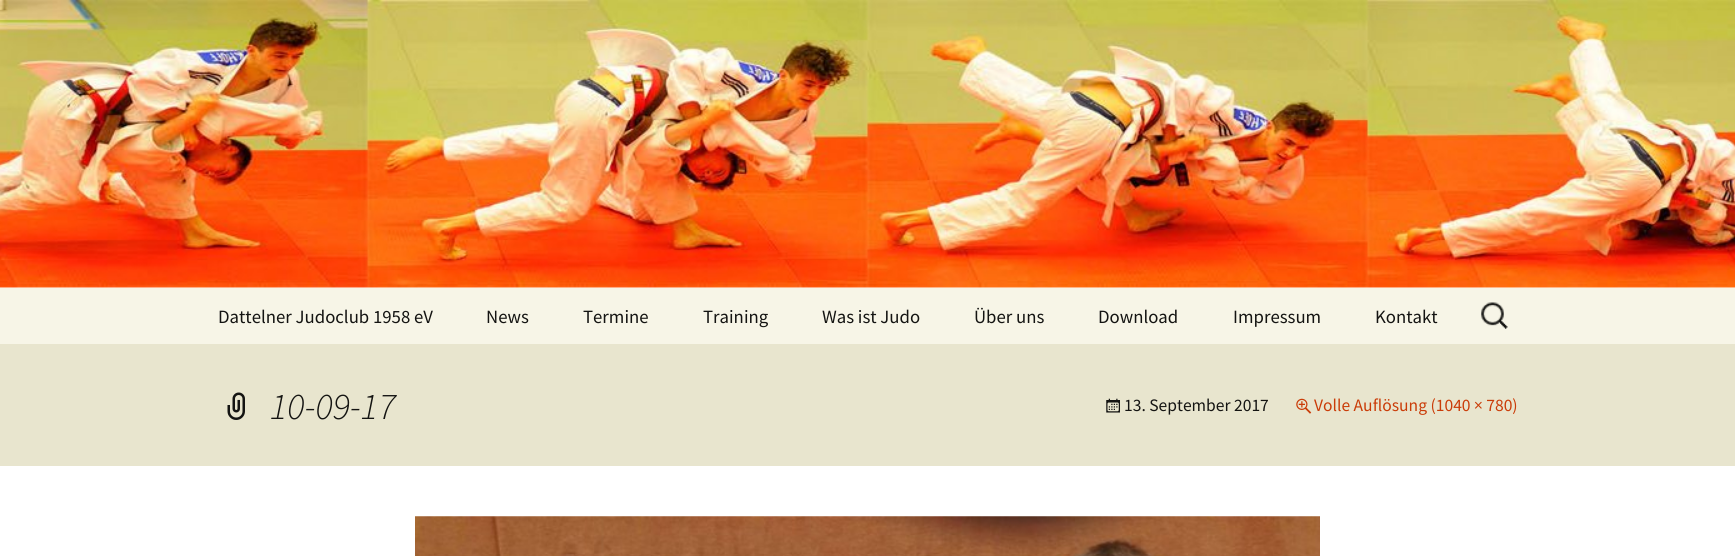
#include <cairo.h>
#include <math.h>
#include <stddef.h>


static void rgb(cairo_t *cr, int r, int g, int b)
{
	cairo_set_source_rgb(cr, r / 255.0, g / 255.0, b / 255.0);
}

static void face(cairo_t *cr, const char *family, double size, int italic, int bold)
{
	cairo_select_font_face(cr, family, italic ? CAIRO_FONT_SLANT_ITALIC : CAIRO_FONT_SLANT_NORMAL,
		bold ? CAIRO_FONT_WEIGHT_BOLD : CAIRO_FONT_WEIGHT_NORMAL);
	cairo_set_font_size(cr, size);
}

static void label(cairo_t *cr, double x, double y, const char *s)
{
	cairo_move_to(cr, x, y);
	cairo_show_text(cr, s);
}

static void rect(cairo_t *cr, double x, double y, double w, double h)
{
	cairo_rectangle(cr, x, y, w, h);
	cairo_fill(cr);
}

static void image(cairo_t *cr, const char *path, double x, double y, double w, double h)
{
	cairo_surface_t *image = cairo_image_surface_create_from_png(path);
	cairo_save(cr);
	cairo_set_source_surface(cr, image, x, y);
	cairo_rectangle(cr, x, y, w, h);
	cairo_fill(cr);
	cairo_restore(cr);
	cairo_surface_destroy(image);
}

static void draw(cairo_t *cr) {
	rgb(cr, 255, 255, 255);
	cairo_paint(cr);
	image(cr, "image0.png", 0, 0, 1735, 288);
	rgb(cr, 247, 245, 231);
	rect(cr, 0, 288, 1735, 56);
	face(cr, "Source Sans Pro", 18.75, 0, 0);
	rgb(cr, 20, 20, 18);
	label(cr, 218, 323, "Dattelner Judoclub 1958 eV");
	label(cr, 486, 323, "News");
	label(cr, 583, 323, "Termine");
	label(cr, 703, 323, "Training");
	label(cr, 822, 323, "Was ist Judo");
	label(cr, 974, 323, "Über uns");
	label(cr, 1098, 323, "Download");
	label(cr, 1233, 323, "Impressum");
	label(cr, 1375, 323, "Kontakt");
	image(cr, "image1.png", 1481, 302, 27, 27);
	rgb(cr, 232, 229, 206);
	rect(cr, 0, 344, 1735, 122);
	image(cr, "image2.png", 227, 392, 18, 28);
	face(cr, "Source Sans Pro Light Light", 37.5, 1, 0);
	rgb(cr, 20, 20, 18);
	label(cr, 270, 419, "10-09-17");
	image(cr, "image3.png", 1106, 398, 14, 15);
	face(cr, "Source Sans Pro", 17.5, 0, 0);
	label(cr, 1124, 411, "13. September 2017");
	image(cr, "image4.png", 1296, 398, 16, 16);
	rgb(cr, 202, 60, 8);
	label(cr, 1314, 411, "Volle Auflösung (1040 × 780)");
	image(cr, "image5.png", 415, 516, 905, 40);
}

int main(void) {
	cairo_surface_t *surface = cairo_image_surface_create(CAIRO_FORMAT_RGB24, 1735, 556);
	cairo_t *cr = cairo_create(surface);
	cairo_font_options_t *options = cairo_font_options_create();
	cairo_font_options_set_hint_metrics(options, CAIRO_HINT_METRICS_OFF);
	cairo_font_options_set_hint_style(options, CAIRO_HINT_STYLE_NONE);
	cairo_set_font_options(cr, options);
	cairo_set_miter_limit(cr, 4);
	draw(cr);
	cairo_surface_write_to_png(surface, "render.png");
	cairo_font_options_destroy(options);
	cairo_destroy(cr);
	cairo_surface_destroy(surface);
	return 0;
}
